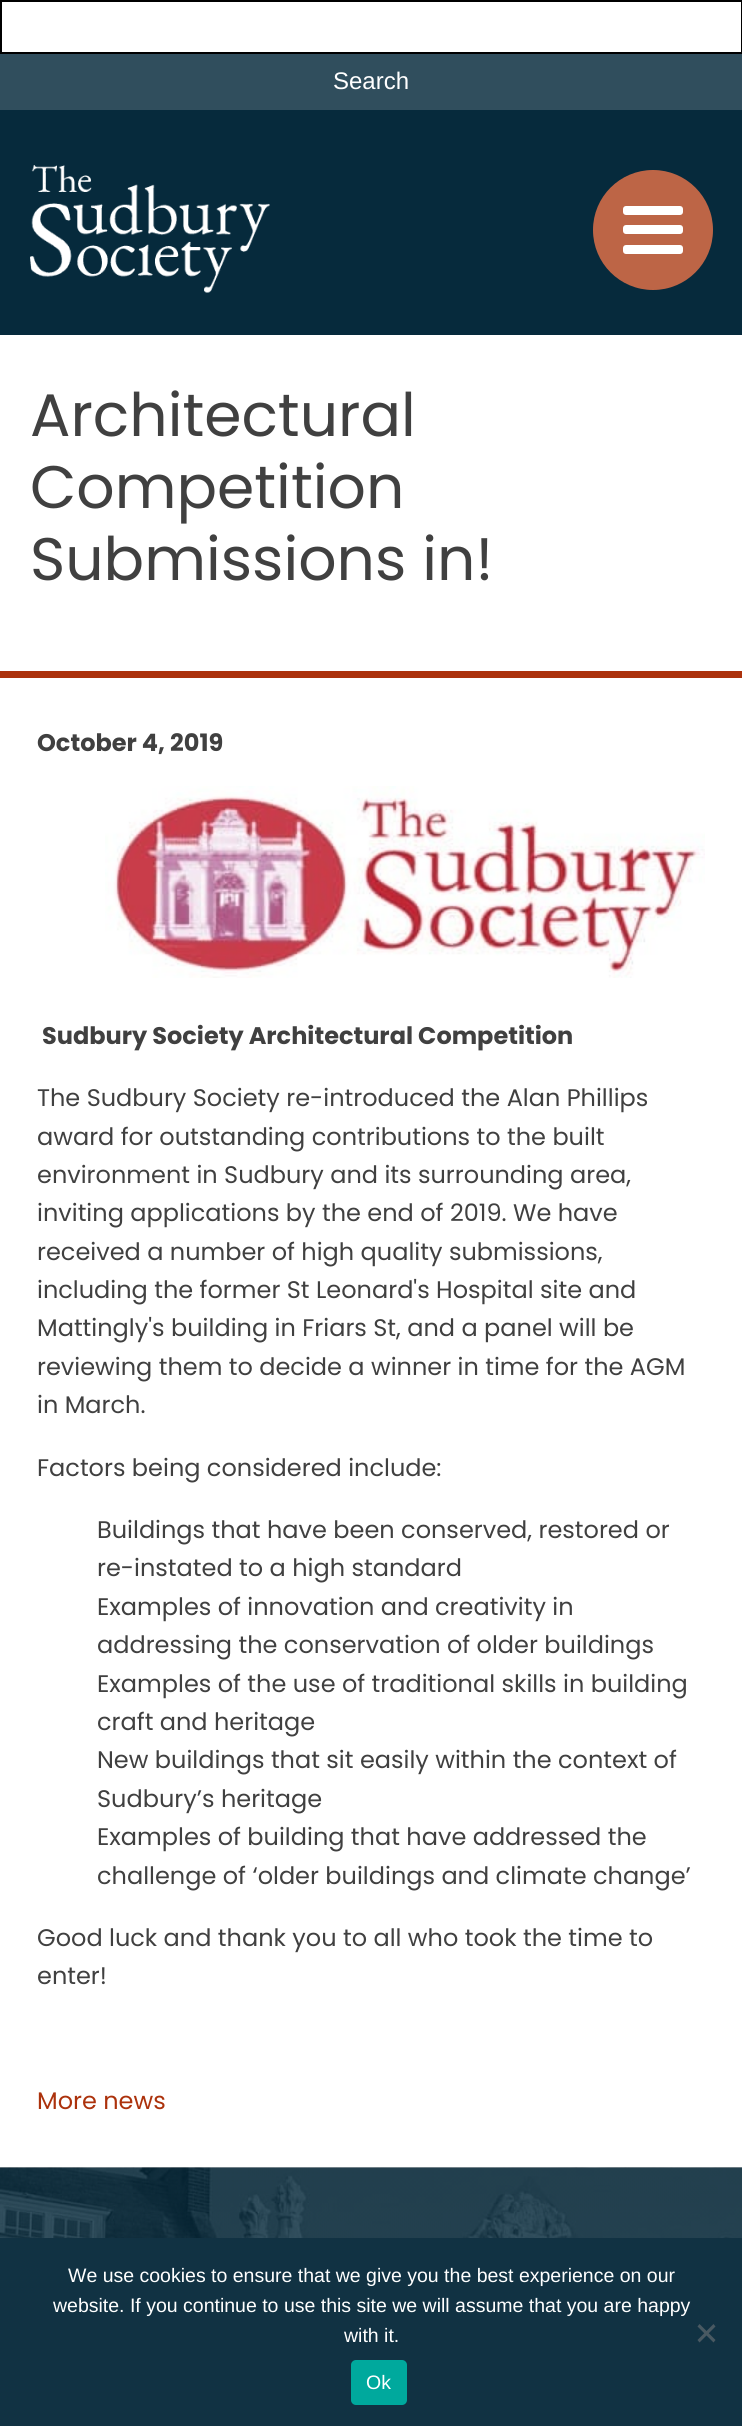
#include <cairo.h>
#include <math.h>
#include <stddef.h>


static void rgb(cairo_t *cr, int r, int g, int b)
{
	cairo_set_source_rgb(cr, r / 255.0, g / 255.0, b / 255.0);
}

static void face(cairo_t *cr, const char *family, double size, int italic, int bold)
{
	cairo_select_font_face(cr, family, italic ? CAIRO_FONT_SLANT_ITALIC : CAIRO_FONT_SLANT_NORMAL,
		bold ? CAIRO_FONT_WEIGHT_BOLD : CAIRO_FONT_WEIGHT_NORMAL);
	cairo_set_font_size(cr, size);
}

static void label(cairo_t *cr, double x, double y, const char *s)
{
	cairo_move_to(cr, x, y);
	cairo_show_text(cr, s);
}

static void rect(cairo_t *cr, double x, double y, double w, double h)
{
	cairo_rectangle(cr, x, y, w, h);
	cairo_fill(cr);
}

static void rrect(cairo_t *cr, double x, double y, double w, double h, double r)
{
	cairo_new_sub_path(cr);
	cairo_arc(cr, x + w - r, y + h - r, r, 0, M_PI / 2);
	cairo_arc(cr, x + r, y + h - r, r, M_PI / 2, M_PI);
	cairo_arc(cr, x + r, y + r, r, M_PI, 1.5 * M_PI);
	cairo_arc(cr, x + w - r, y + r, r, 1.5 * M_PI, 2 * M_PI);
	cairo_close_path(cr);
}

static void image(cairo_t *cr, const char *path, double x, double y, double w, double h)
{
	cairo_surface_t *image = cairo_image_surface_create_from_png(path);
	cairo_save(cr);
	cairo_set_source_surface(cr, image, x, y);
	cairo_rectangle(cr, x, y, w, h);
	cairo_fill(cr);
	cairo_restore(cr);
	cairo_surface_destroy(image);
}

static void draw(cairo_t *cr) {
	rgb(cr, 255, 255, 255);
	cairo_paint(cr);
	cairo_rectangle(cr, 1, 1, 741, 52);
	rgb(cr, 0, 0, 0);
	cairo_stroke(cr);
	rgb(cr, 48, 78, 93);
	rect(cr, 0, 54, 742, 56);
	face(cr, "Liberation Sans", 24, 0, 0);
	rgb(cr, 255, 255, 255);
	label(cr, 333, 89, "Search");
	rgb(cr, 6, 42, 60);
	rect(cr, 0, 110, 742, 225);
	image(cr, "image0.png", 30, 165, 240, 128);
	rgb(cr, 189, 101, 70);
	cairo_arc(cr, 653, 230, 60, 0, 2 * M_PI);
	cairo_fill(cr);
	rgb(cr, 255, 255, 255);
	rrect(cr, 623, 206, 60, 9, 3);
	cairo_fill(cr);
	rrect(cr, 623, 225, 60, 9, 3);
	cairo_fill(cr);
	rrect(cr, 623, 245, 60, 9, 3);
	cairo_fill(cr);
	face(cr, "Poppins", 60, 0, 0);
	rgb(cr, 64, 64, 64);
	label(cr, 30, 436, "Architectural");
	label(cr, 30, 508, "Competition");
	label(cr, 30, 580, "Submissions in!");
	rgb(cr, 172, 50, 12);
	rect(cr, 0, 671, 742, 7);
	face(cr, "Poppins", 24, 0, 1);
	rgb(cr, 64, 64, 64);
	label(cr, 37, 751, "October 4, 2019");
	image(cr, "image1.png", 105, 786, 600, 192);
	label(cr, 42, 1044, "Sudbury Society Architectural Competition");
	face(cr, "Poppins", 24, 0, 0);
	label(cr, 37, 1106, "The Sudbury Society re-introduced the Alan Phillips");
	label(cr, 37, 1145, "award for outstanding contributions to the built");
	label(cr, 37, 1183, "environment in Sudbury and its surrounding area,");
	label(cr, 37, 1221, "inviting applications by the end of 2019. We have");
	label(cr, 37, 1260, "received a number of high quality submissions,");
	label(cr, 37, 1298, "including the former St Leonard's Hospital site and");
	label(cr, 37, 1336, "Mattingly's building in Friars St, and a panel will be");
	label(cr, 37, 1375, "reviewing them to decide a winner in time for the AGM");
	label(cr, 37, 1413, "in March.");
	label(cr, 37, 1476, "Factors being considered include:");
	label(cr, 97, 1538, "Buildings that have been conserved, restored or");
	label(cr, 97, 1576, "re-instated to a high standard");
	label(cr, 97, 1615, "Examples of innovation and creativity in");
	label(cr, 97, 1653, "addressing the conservation of older buildings");
	label(cr, 97, 1692, "Examples of the use of traditional skills in building");
	label(cr, 97, 1730, "craft and heritage");
	label(cr, 97, 1768, "New buildings that sit easily within the context of");
	label(cr, 97, 1807, "Sudbury’s heritage");
	label(cr, 97, 1845, "Examples of building that have addressed the");
	label(cr, 97, 1884, "challenge of ‘older buildings and climate change’");
	label(cr, 37, 1946, "Good luck and thank you to all who took the time to");
	label(cr, 37, 1984, "enter!");
	rgb(cr, 172, 50, 12);
	label(cr, 37, 2109, "More news");
	image(cr, "image2.png", 0, 2167, 742, 71);
	rgb(cr, 17, 50, 67);
	rect(cr, 0, 2238, 742, 188);
	face(cr, "Liberation Sans", 19.5, 0, 0);
	rgb(cr, 255, 255, 255);
	label(cr, 68, 2282, "We use cookies to ensure that we give you the best experience on our");
	label(cr, 53, 2312, "website. If you continue to use this site we will assume that you are happy");
	label(cr, 344, 2342, "with it.");
	rgb(cr, 73, 89, 98);
	cairo_new_path(cr);
	cairo_move_to(cr, 713.5, 2324);
	cairo_line_to(cr, 715.5, 2326.5);
	cairo_line_to(cr, 699.5, 2342.5);
	cairo_line_to(cr, 697.5, 2340);
	cairo_close_path(cr);
	cairo_fill(cr);
	cairo_new_path(cr);
	cairo_move_to(cr, 697.5, 2326.5);
	cairo_line_to(cr, 699.5, 2324);
	cairo_line_to(cr, 715.5, 2340);
	cairo_line_to(cr, 713.5, 2342.5);
	cairo_close_path(cr);
	cairo_fill(cr);
	rgb(cr, 0, 169, 157);
	rrect(cr, 351, 2360, 56, 45, 5);
	cairo_fill(cr);
	rgb(cr, 255, 255, 255);
	label(cr, 366, 2389, "Ok");
}

int main(void) {
	cairo_surface_t *surface = cairo_image_surface_create(CAIRO_FORMAT_RGB24, 742, 2426);
	cairo_t *cr = cairo_create(surface);
	cairo_font_options_t *options = cairo_font_options_create();
	cairo_font_options_set_hint_metrics(options, CAIRO_HINT_METRICS_OFF);
	cairo_font_options_set_hint_style(options, CAIRO_HINT_STYLE_NONE);
	cairo_set_font_options(cr, options);
	cairo_set_miter_limit(cr, 4);
	draw(cr);
	cairo_surface_write_to_png(surface, "render.png");
	cairo_font_options_destroy(options);
	cairo_destroy(cr);
	cairo_surface_destroy(surface);
	return 0;
}
